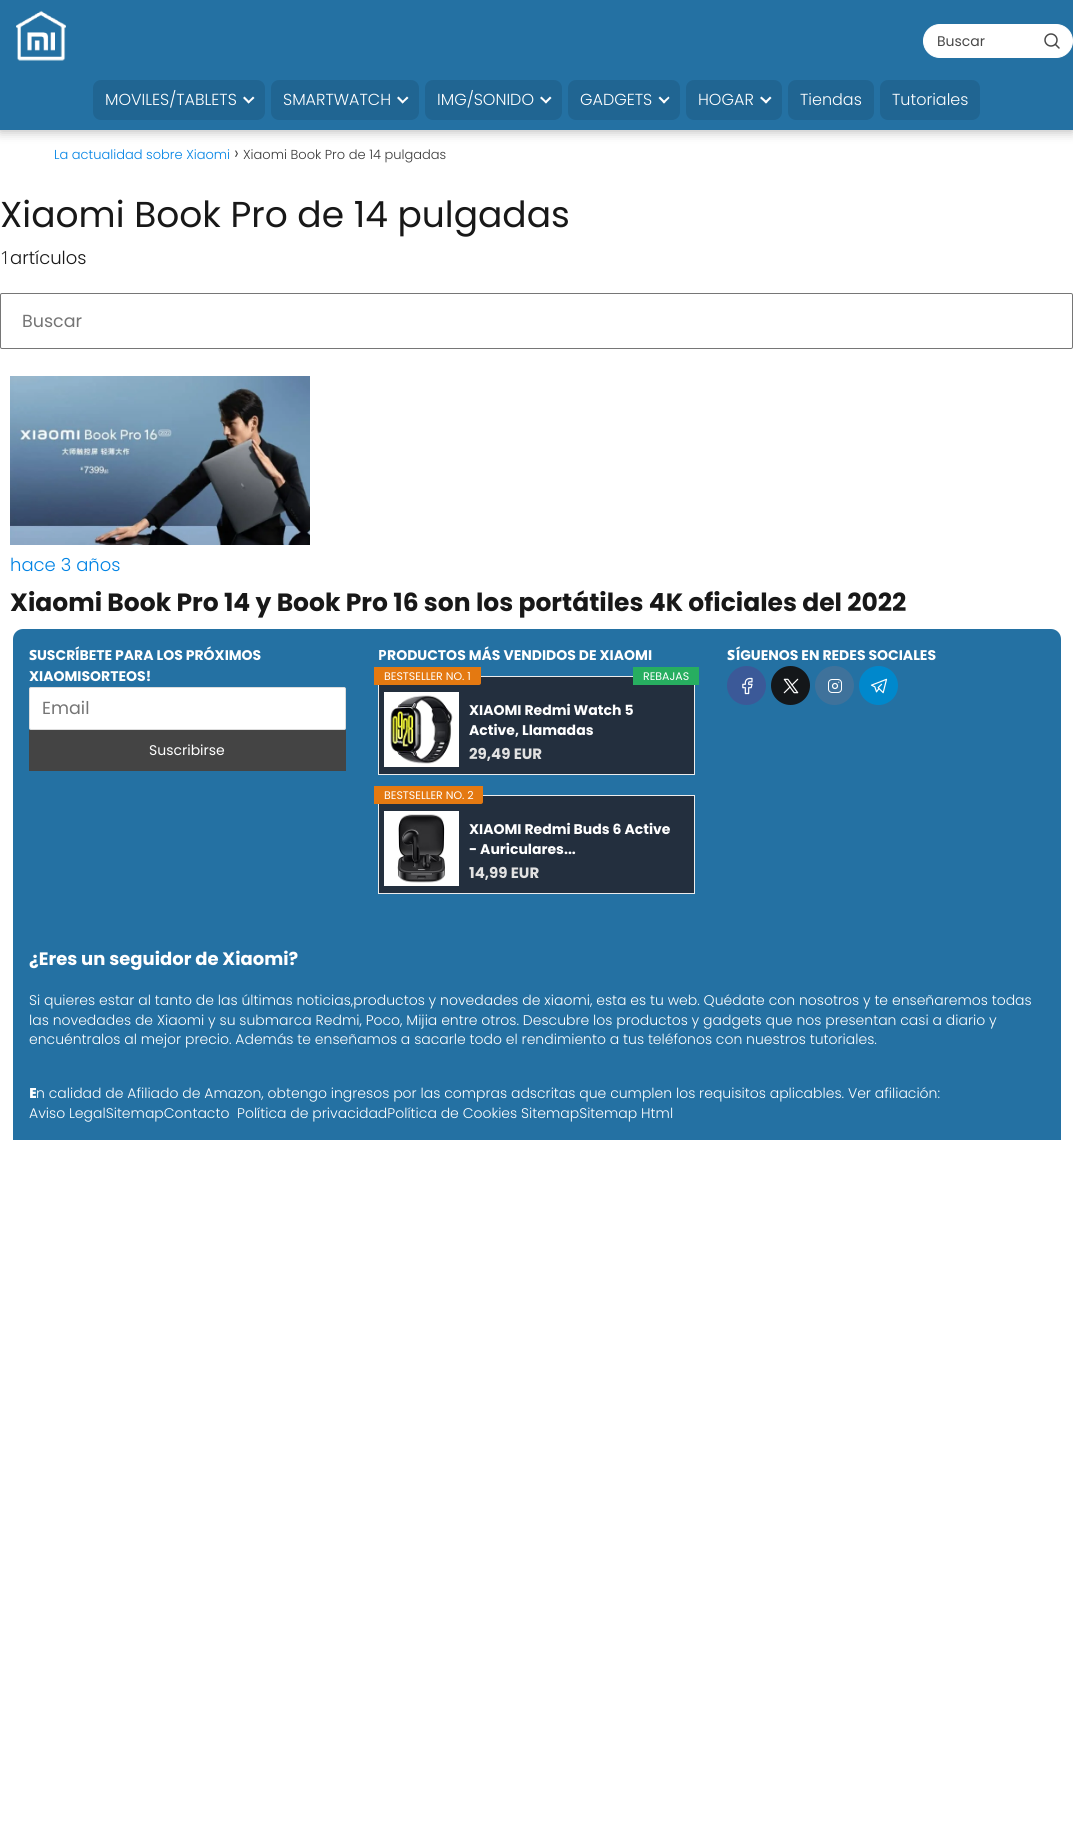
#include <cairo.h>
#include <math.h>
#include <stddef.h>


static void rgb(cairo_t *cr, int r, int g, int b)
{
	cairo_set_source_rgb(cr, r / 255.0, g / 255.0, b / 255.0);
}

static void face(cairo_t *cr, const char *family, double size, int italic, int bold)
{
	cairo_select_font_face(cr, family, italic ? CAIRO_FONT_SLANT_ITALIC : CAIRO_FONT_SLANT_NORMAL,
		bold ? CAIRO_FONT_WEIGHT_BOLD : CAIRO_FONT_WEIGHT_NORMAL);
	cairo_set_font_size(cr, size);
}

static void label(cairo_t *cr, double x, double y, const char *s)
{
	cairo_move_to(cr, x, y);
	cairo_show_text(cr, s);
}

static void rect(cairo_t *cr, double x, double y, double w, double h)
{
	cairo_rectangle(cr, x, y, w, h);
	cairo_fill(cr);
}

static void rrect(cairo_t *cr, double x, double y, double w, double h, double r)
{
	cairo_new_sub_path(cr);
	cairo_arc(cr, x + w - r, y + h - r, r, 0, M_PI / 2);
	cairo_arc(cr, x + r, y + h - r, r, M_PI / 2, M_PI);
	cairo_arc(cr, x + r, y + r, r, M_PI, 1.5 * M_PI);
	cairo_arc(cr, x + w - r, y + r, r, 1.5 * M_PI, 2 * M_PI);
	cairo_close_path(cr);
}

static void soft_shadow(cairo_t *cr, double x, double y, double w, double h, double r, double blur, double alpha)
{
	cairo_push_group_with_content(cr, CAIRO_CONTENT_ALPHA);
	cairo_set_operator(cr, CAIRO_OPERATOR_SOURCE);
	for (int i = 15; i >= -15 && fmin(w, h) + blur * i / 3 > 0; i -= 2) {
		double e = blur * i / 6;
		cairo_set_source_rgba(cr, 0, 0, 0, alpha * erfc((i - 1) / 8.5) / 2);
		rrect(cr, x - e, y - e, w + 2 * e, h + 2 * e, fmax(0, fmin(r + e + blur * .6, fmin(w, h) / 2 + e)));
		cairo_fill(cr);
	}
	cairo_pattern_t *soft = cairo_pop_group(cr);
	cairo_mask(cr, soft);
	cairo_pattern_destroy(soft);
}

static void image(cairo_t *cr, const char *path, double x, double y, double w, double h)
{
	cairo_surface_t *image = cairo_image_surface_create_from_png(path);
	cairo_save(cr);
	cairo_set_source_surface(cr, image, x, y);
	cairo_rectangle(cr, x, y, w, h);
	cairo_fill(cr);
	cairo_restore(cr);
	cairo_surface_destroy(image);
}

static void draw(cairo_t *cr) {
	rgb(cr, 255, 255, 255);
	cairo_paint(cr);
	rgb(cr, 0, 0, 0);
	soft_shadow(cr, 0, 71, 1073, 60, 0, 6, 0.3);
	rgb(cr, 36, 113, 163);
	rect(cr, 0, 0, 1073, 130);
	image(cr, "image0.png", 16, 10, 50, 51);
	rgb(cr, 255, 255, 255);
	rrect(cr, 923.5, 24.5, 149, 33, 16.5);
	cairo_fill_preserve(cr);
	cairo_set_line_width(cr, 1);
	cairo_stroke(cr);
	face(cr, "Poppins", 14, 0, 0);
	rgb(cr, 72, 72, 72);
	label(cr, 937, 46, "Buscar");
	cairo_new_path(cr);
	cairo_arc(cr, 1051, 40, 6, 0, 2 * M_PI);
	cairo_set_line_width(cr, 1.5);
	cairo_stroke(cr);
	cairo_new_path(cr);
	cairo_move_to(cr, 1059, 48);
	cairo_line_to(cr, 1055.5, 44.5);
	cairo_set_line_cap(cr, CAIRO_LINE_CAP_ROUND);
	cairo_set_line_join(cr, CAIRO_LINE_JOIN_ROUND);
	cairo_stroke(cr);
	rgb(cr, 32, 101, 146);
	rrect(cr, 93, 80, 172, 40, 8);
	cairo_fill(cr);
	face(cr, "Poppins Light", 16, 0, 0);
	rgb(cr, 255, 255, 255);
	label(cr, 105, 105, "MOVILES/TABLETS");
	cairo_new_path(cr);
	cairo_move_to(cr, 253, 96.5);
	cairo_line_to(cr, 254.5, 98);
	cairo_line_to(cr, 248.5, 103.5);
	cairo_line_to(cr, 247.5, 102);
	cairo_close_path(cr);
	cairo_fill(cr);
	cairo_new_path(cr);
	cairo_move_to(cr, 244.5, 96.5);
	cairo_line_to(cr, 250, 102);
	cairo_line_to(cr, 248.5, 103.5);
	cairo_line_to(cr, 243, 98);
	cairo_close_path(cr);
	cairo_fill(cr);
	rgb(cr, 32, 101, 146);
	rrect(cr, 271, 80, 148, 40, 8);
	cairo_fill(cr);
	rgb(cr, 255, 255, 255);
	label(cr, 283, 105, "SMARTWATCH");
	cairo_new_path(cr);
	cairo_move_to(cr, 407, 96.5);
	cairo_line_to(cr, 408.5, 98);
	cairo_line_to(cr, 402.5, 103.5);
	cairo_line_to(cr, 401.5, 102);
	cairo_close_path(cr);
	cairo_fill(cr);
	cairo_new_path(cr);
	cairo_move_to(cr, 398.5, 96.5);
	cairo_line_to(cr, 404, 102);
	cairo_line_to(cr, 402.5, 103.5);
	cairo_line_to(cr, 397, 98);
	cairo_close_path(cr);
	cairo_fill(cr);
	rgb(cr, 32, 101, 146);
	rrect(cr, 425, 80, 137, 40, 8);
	cairo_fill(cr);
	rgb(cr, 255, 255, 255);
	label(cr, 437, 105, "IMG/SONIDO");
	cairo_new_path(cr);
	cairo_move_to(cr, 550, 96.5);
	cairo_line_to(cr, 551.5, 98);
	cairo_line_to(cr, 546, 103.5);
	cairo_line_to(cr, 544.5, 102);
	cairo_close_path(cr);
	cairo_fill(cr);
	cairo_new_path(cr);
	cairo_move_to(cr, 541.5, 96.5);
	cairo_line_to(cr, 547, 102);
	cairo_line_to(cr, 546, 103.5);
	cairo_line_to(cr, 540, 98);
	cairo_close_path(cr);
	cairo_fill(cr);
	rgb(cr, 32, 101, 146);
	rrect(cr, 568, 80, 112, 40, 8);
	cairo_fill(cr);
	rgb(cr, 255, 255, 255);
	label(cr, 580, 105, "GADGETS");
	cairo_new_path(cr);
	cairo_move_to(cr, 668.5, 96.5);
	cairo_line_to(cr, 669.5, 98);
	cairo_line_to(cr, 664, 103.5);
	cairo_line_to(cr, 662.5, 102);
	cairo_close_path(cr);
	cairo_fill(cr);
	cairo_new_path(cr);
	cairo_move_to(cr, 660, 96.5);
	cairo_line_to(cr, 665.5, 102);
	cairo_line_to(cr, 664, 103.5);
	cairo_line_to(cr, 658.5, 98);
	cairo_close_path(cr);
	cairo_fill(cr);
	rgb(cr, 32, 101, 146);
	rrect(cr, 686, 80, 96, 40, 8);
	cairo_fill(cr);
	rgb(cr, 255, 255, 255);
	label(cr, 698, 105, "HOGAR");
	cairo_new_path(cr);
	cairo_move_to(cr, 770, 96.5);
	cairo_line_to(cr, 771.5, 98);
	cairo_line_to(cr, 766, 103.5);
	cairo_line_to(cr, 764.5, 102);
	cairo_close_path(cr);
	cairo_fill(cr);
	cairo_new_path(cr);
	cairo_move_to(cr, 761.5, 96.5);
	cairo_line_to(cr, 767.5, 102);
	cairo_line_to(cr, 766, 103.5);
	cairo_line_to(cr, 760, 98);
	cairo_close_path(cr);
	cairo_fill(cr);
	rgb(cr, 32, 101, 146);
	rrect(cr, 788, 80, 86, 40, 8);
	cairo_fill(cr);
	rgb(cr, 255, 255, 255);
	label(cr, 800, 105, "Tiendas");
	rgb(cr, 32, 101, 146);
	rrect(cr, 880, 80, 100, 40, 8);
	cairo_fill(cr);
	rgb(cr, 255, 255, 255);
	label(cr, 892, 105, "Tutoriales");
	face(cr, "Poppins Light", 13, 0, 0);
	rgb(cr, 1, 131, 228);
	label(cr, 54, 159, "La actualidad sobre Xiaomi");
	face(cr, "Poppins Light", 18, 0, 0);
	rgb(cr, 58, 58, 58);
	label(cr, 234, 159, "›");
	face(cr, "Poppins Light", 13, 0, 0);
	label(cr, 243, 159, "Xiaomi Book Pro de 14 pulgadas");
	face(cr, "Poppins", 36, 0, 0);
	rgb(cr, 24, 24, 24);
	label(cr, 0, 227, "Xiaomi Book Pro de 14 pulgadas");
	face(cr, "Noto Sans Light", 18, 0, 0);
	label(cr, 0, 264, "1");
	face(cr, "Poppins Light", 18, 0, 0);
	label(cr, 10, 264, "artículos");
	rrect(cr, 0.5, 293.5, 1072, 55, 1.5);
	rgb(cr, 118, 118, 118);
	cairo_set_line_width(cr, 1);
	cairo_set_line_cap(cr, CAIRO_LINE_CAP_BUTT);
	cairo_set_line_join(cr, CAIRO_LINE_JOIN_MITER);
	cairo_stroke(cr);
	face(cr, "Poppins", 17.5, 0, 0);
	rgb(cr, 117, 117, 117);
	label(cr, 22, 327, "Buscar");
	image(cr, "image1.png", 10, 376, 300, 169);
	face(cr, "Poppins Light", 18, 0, 0);
	rgb(cr, 1, 131, 228);
	label(cr, 10, 571, "hace 3 años");
	face(cr, "Poppins", 25, 0, 1);
	rgb(cr, 24, 24, 24);
	label(cr, 10, 611, "Xiaomi Book Pro 14 y Book Pro 16 son los portátiles 4K oficiales del 2022");
	rgb(cr, 36, 113, 163);
	cairo_new_path(cr);
	cairo_move_to(cr, 23, 629);
	cairo_line_to(cr, 1051, 629);
	cairo_curve_to(cr, 1056.5, 629, 1061, 633.5, 1061, 639);
	cairo_line_to(cr, 1061, 1140);
	cairo_line_to(cr, 13, 1140);
	cairo_line_to(cr, 13, 639);
	cairo_curve_to(cr, 13, 633.5, 17.5, 629, 23, 629);
	cairo_close_path(cr);
	cairo_fill(cr);
	face(cr, "Noto Sans Black", 14, 0, 0);
	rgb(cr, 255, 255, 255);
	label(cr, 29, 660, "S");
	face(cr, "Poppins", 14, 0, 1);
	label(cr, 37, 660, "USCRÍBETE PARA LOS PRÓXIMOS");
	label(cr, 29, 681, "XIAOMISORTEOS!");
	rrect(cr, 29.5, 687.5, 316, 42, 1.5);
	cairo_fill_preserve(cr);
	rgb(cr, 221, 221, 221);
	cairo_stroke(cr);
	face(cr, "Poppins", 17.5, 0, 0);
	rgb(cr, 117, 117, 117);
	label(cr, 42, 714, "Email");
	rgb(cr, 68, 68, 68);
	rect(cr, 29, 730, 317, 41);
	face(cr, "Poppins", 14, 0, 0);
	rgb(cr, 255, 255, 255);
	label(cr, 149, 755, "Suscribirse");
	face(cr, "Noto Sans", 14, 0, 1);
	label(cr, 378, 660, "P");
	face(cr, "Poppins", 14, 0, 1);
	label(cr, 387, 660, "RODUCTOS MÁS VENDIDOS DE XIAOMI");
	rgb(cr, 35, 47, 62);
	cairo_rectangle(cr, 378.5, 676.5, 316, 98);
	cairo_fill_preserve(cr);
	rgb(cr, 236, 236, 236);
	cairo_stroke(cr);
	rgb(cr, 228, 121, 17);
	cairo_new_path(cr);
	cairo_move_to(cr, 374, 667);
	cairo_line_to(cr, 481, 667);
	cairo_line_to(cr, 481, 683);
	cairo_curve_to(cr, 481, 684, 480, 685, 479, 685);
	cairo_line_to(cr, 374, 685);
	cairo_close_path(cr);
	cairo_fill(cr);
	face(cr, "Poppins", 11, 0, 0);
	rgb(cr, 255, 255, 255);
	label(cr, 384, 680, "BESTSELLER NO. 1");
	rgb(cr, 39, 174, 96);
	rect(cr, 633, 667, 66, 18);
	rgb(cr, 255, 255, 255);
	label(cr, 643, 680, "REBAJAS");
	image(cr, "image2.png", 384, 692, 75, 75);
	face(cr, "Poppins", 14, 0, 1);
	label(cr, 469, 715, "XIAOMI Redmi Watch 5");
	label(cr, 469, 735, "Active, Llamadas");
	face(cr, "Poppins", 15, 0, 1);
	rgb(cr, 226, 226, 226);
	label(cr, 469, 759, "29,49 EUR");
	rgb(cr, 35, 47, 62);
	cairo_rectangle(cr, 378.5, 795.5, 316, 98);
	cairo_fill_preserve(cr);
	rgb(cr, 236, 236, 236);
	cairo_stroke(cr);
	rgb(cr, 228, 121, 17);
	cairo_new_path(cr);
	cairo_move_to(cr, 374, 786);
	cairo_line_to(cr, 483, 786);
	cairo_line_to(cr, 483, 802);
	cairo_curve_to(cr, 483, 803, 482, 804, 481, 804);
	cairo_line_to(cr, 374, 804);
	cairo_close_path(cr);
	cairo_fill(cr);
	face(cr, "Poppins", 11, 0, 0);
	rgb(cr, 255, 255, 255);
	label(cr, 384, 799, "BESTSELLER NO. 2");
	image(cr, "image3.png", 384, 811, 75, 75);
	face(cr, "Poppins", 14, 0, 1);
	label(cr, 469, 834, "XIAOMI Redmi Buds 6 Active");
	label(cr, 469, 854, "- Auriculares...");
	face(cr, "Poppins", 15, 0, 1);
	rgb(cr, 226, 226, 226);
	label(cr, 469, 878, "14,99 EUR");
	face(cr, "Noto Sans Black", 14, 0, 0);
	rgb(cr, 255, 255, 255);
	label(cr, 727, 660, "S");
	face(cr, "Poppins", 14, 0, 1);
	label(cr, 736, 660, "ÍGUENOS EN REDES SOCIALES");
	rgb(cr, 59, 89, 152);
	cairo_new_path(cr);
	cairo_arc(cr, 746.5, 685.5, 19.5, 0, 2 * M_PI);
	cairo_fill(cr);
	image(cr, "image4.png", 742, 677, 11, 18);
	rgb(cr, 20, 23, 26);
	cairo_arc(cr, 790.5, 685.5, 19.5, 0, 2 * M_PI);
	cairo_fill(cr);
	image(cr, "image5.png", 783, 678, 16, 16);
	rgb(cr, 63, 114, 155);
	cairo_arc(cr, 834.5, 685.5, 19.5, 0, 2 * M_PI);
	cairo_fill(cr);
	image(cr, "image6.png", 828, 679, 14, 14);
	rgb(cr, 0, 136, 204);
	cairo_arc(cr, 878.5, 685.5, 19.5, 0, 2 * M_PI);
	cairo_fill(cr);
	image(cr, "image7.png", 870, 678, 18, 16);
	face(cr, "Poppins", 18, 0, 1);
	rgb(cr, 255, 255, 255);
	label(cr, 29, 965, "¿Eres un seguidor de Xiaomi?");
	face(cr, "Poppins Light", 14, 0, 0);
	label(cr, 29, 1005, "Si quieres estar al tanto de las últimas noticias,productos y novedades de xiaomi, esta es tu web. Quédate con nosotros y te enseñaremos todas");
	label(cr, 29, 1025, "las novedades de Xiaomi y su submarca Redmi, Poco, Mijia entre otros. Descubre los productos y gadgets que nos presentan casi a diario y");
	label(cr, 29, 1044, "encuéntralos al mejor precio. Además te enseñamos a sacarle todo el rendimiento a tus teléfonos con nuestros tutoriales.");
	face(cr, "Noto Sans Black", 14, 0, 0);
	label(cr, 29, 1098, "E");
	face(cr, "Poppins Light", 14, 0, 0);
	label(cr, 36, 1098, "n calidad de Afiliado de Amazon, obtengo ingresos por las compras adscritas que cumplen los requisitos aplicables. Ver afiliación:");
	label(cr, 29, 1118, "Aviso LegalSitemapContacto");
	label(cr, 237, 1118, "Política de privacidadPolítica de Cookies SitemapSitemap Html");
}

int main(void) {
	cairo_surface_t *surface = cairo_image_surface_create(CAIRO_FORMAT_RGB24, 1073, 1823);
	cairo_t *cr = cairo_create(surface);
	cairo_font_options_t *options = cairo_font_options_create();
	cairo_font_options_set_hint_metrics(options, CAIRO_HINT_METRICS_OFF);
	cairo_font_options_set_hint_style(options, CAIRO_HINT_STYLE_NONE);
	cairo_set_font_options(cr, options);
	cairo_set_miter_limit(cr, 4);
	draw(cr);
	cairo_surface_write_to_png(surface, "render.png");
	cairo_font_options_destroy(options);
	cairo_destroy(cr);
	cairo_surface_destroy(surface);
	return 0;
}
